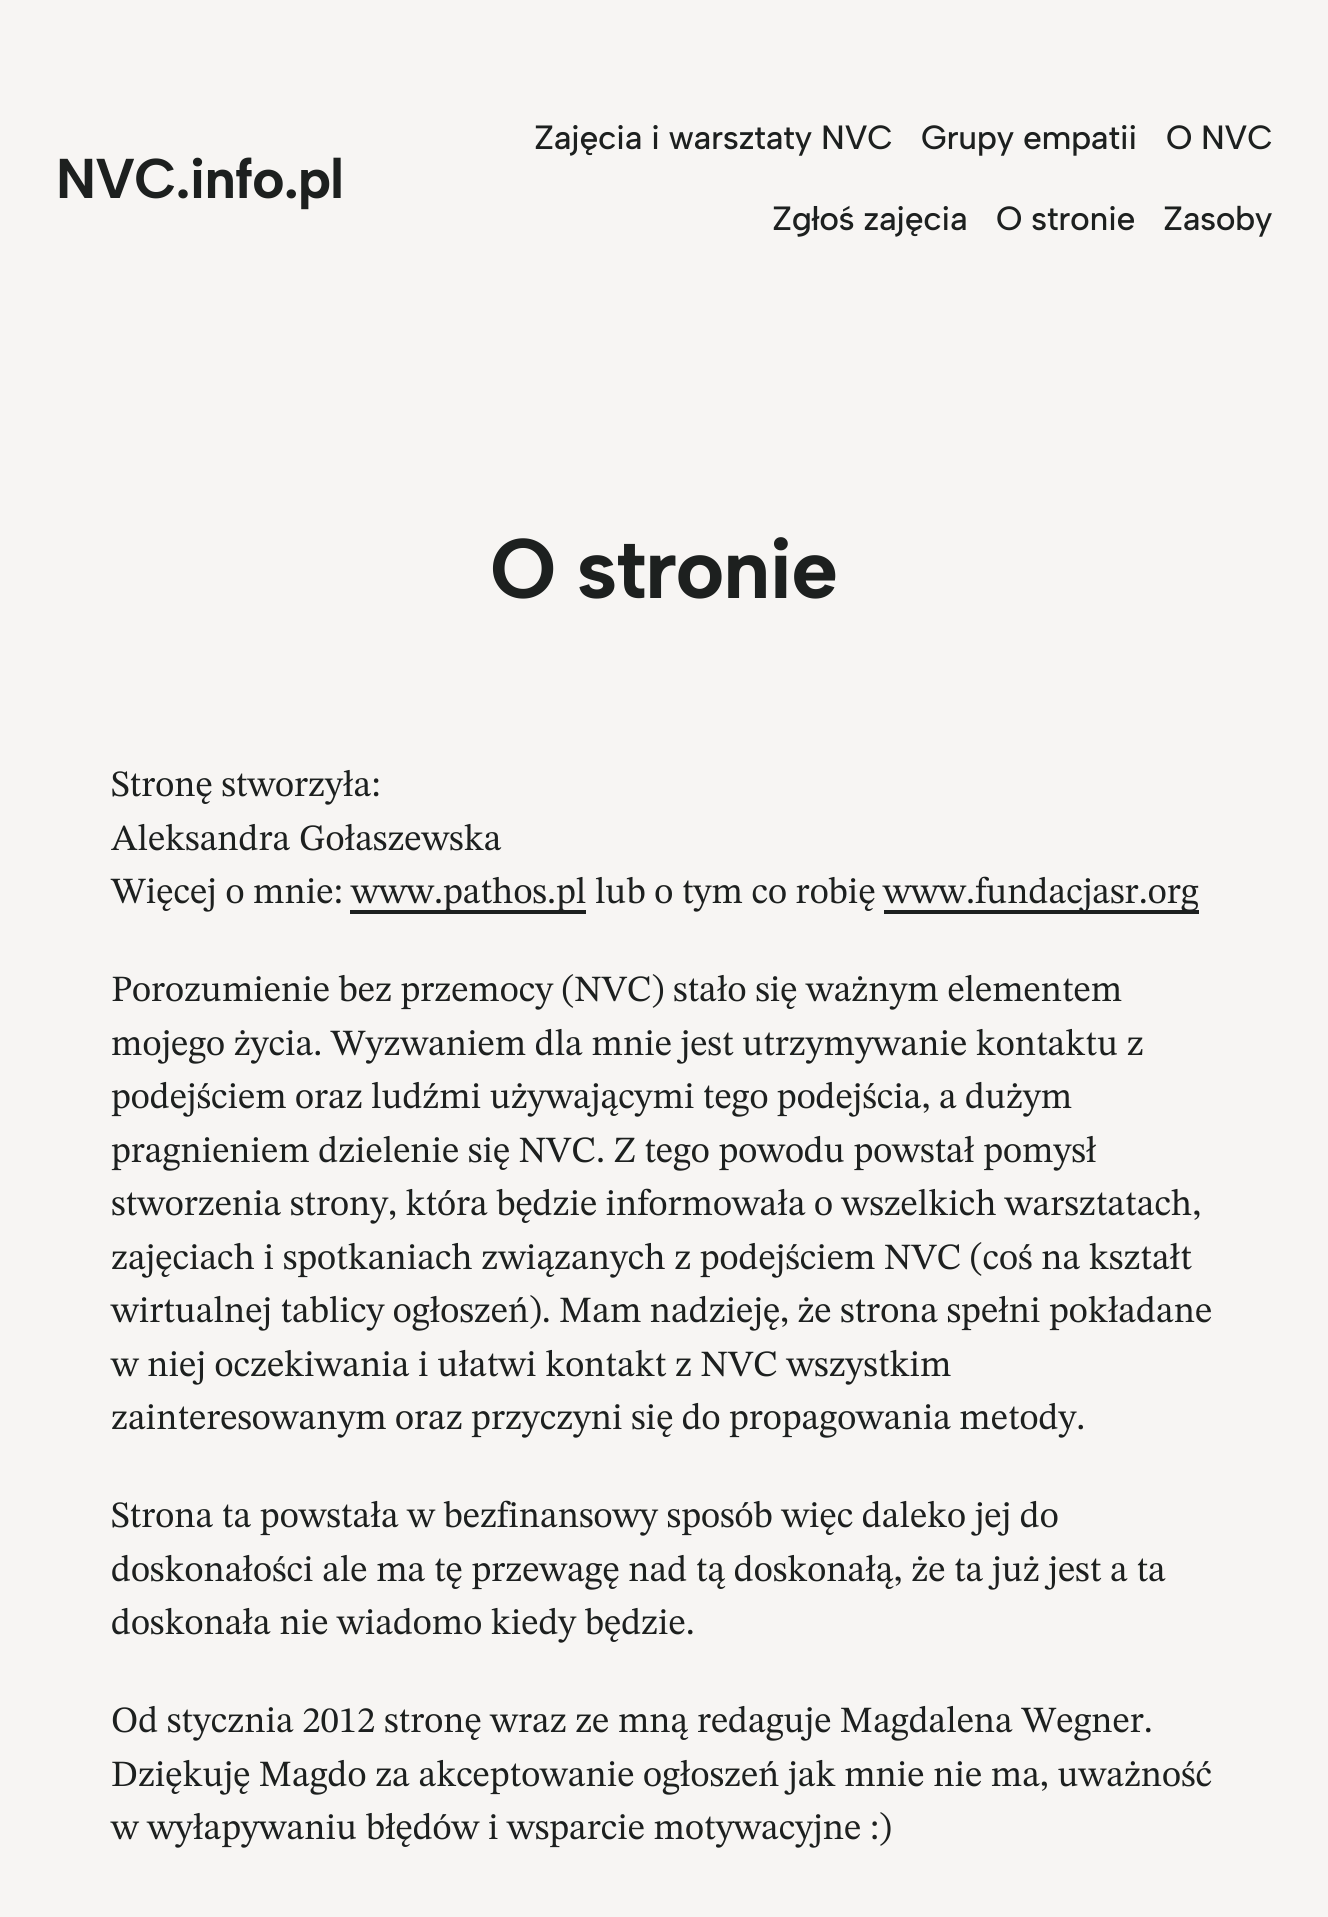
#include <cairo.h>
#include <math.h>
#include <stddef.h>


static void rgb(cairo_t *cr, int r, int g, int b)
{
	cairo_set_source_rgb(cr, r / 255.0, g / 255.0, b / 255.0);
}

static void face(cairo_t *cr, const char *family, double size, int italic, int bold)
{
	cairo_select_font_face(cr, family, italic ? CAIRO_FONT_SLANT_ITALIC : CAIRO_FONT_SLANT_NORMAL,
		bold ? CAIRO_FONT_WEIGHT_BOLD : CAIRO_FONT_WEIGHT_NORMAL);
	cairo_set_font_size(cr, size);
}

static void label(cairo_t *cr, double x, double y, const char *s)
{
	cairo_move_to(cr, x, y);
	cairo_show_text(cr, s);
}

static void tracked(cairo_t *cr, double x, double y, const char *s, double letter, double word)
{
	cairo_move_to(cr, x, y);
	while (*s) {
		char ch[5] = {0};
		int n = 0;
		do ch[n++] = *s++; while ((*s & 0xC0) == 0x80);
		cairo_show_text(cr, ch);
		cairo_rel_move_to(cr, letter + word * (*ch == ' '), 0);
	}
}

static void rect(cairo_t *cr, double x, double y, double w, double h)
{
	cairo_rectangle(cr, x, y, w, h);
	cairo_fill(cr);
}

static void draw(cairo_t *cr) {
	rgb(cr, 247, 245, 243);
	cairo_paint(cr);
	face(cr, "Albert Sans", 56, 0, 1);
	rgb(cr, 29, 32, 31);
	tracked(cr, 56, 198, "NVC.info.pl", -1.1, 0);
	face(cr, "Albert Sans Medium", 33.6, 0, 0);
	tracked(cr, 534, 149, "Zajęcia i warsztaty NVC", -0.4, 0);
	tracked(cr, 921, 149, "Grupy empatii", -0.4, 0);
	tracked(cr, 1166, 149, "O NVC", -0.4, 0);
	tracked(cr, 772, 230, "Zgłoś zajęcia", -0.4, 0);
	tracked(cr, 996, 230, "O stronie", -0.4, 0);
	tracked(cr, 1163, 230, "Zasoby", -0.4, 0);
	face(cr, "Albert Sans", 84.5, 0, 1);
	tracked(cr, 490, 598, "O stronie", -1.75, 0);
	face(cr, "STIX Two Text", 36.9, 0, 0);
	label(cr, 111, 796, "Stronę stworzyła:");
	label(cr, 111, 850, "Aleksandra Gołaszewska");
	label(cr, 111, 903, "Więcej o mnie:");
	rect(cr, 350, 910, 236, 4);
	label(cr, 351, 903, "www.pathos.pl lub o tym co robię");
	rect(cr, 884, 910, 315, 4);
	label(cr, 883, 903, "www.fundacjasr.org");
	label(cr, 111, 1001, "Porozumienie bez przemocy (NVC) stało się ważnym elementem");
	label(cr, 111, 1055, "mojego życia. Wyzwaniem dla mnie jest utrzymywanie kontaktu z");
	tracked(cr, 111, 1108, "podejściem oraz ludźmi używającymi tego podejścia, a dużym", 0, -0.25);
	label(cr, 111, 1162, "pragnieniem dzielenie się NVC. Z tego powodu powstał pomysł");
	tracked(cr, 111, 1215, "stworzenia strony, która będzie informowała o wszelkich warsztatach,", 0, -0.25);
	label(cr, 111, 1269, "zajęciach i spotkaniach związanych z podejściem NVC (coś na kształt");
	tracked(cr, 111, 1322, "wirtualnej tablicy ogłoszeń). Mam nadzieję, że strona spełni pokładane", 0, -0.25);
	label(cr, 111, 1376, "w niej oczekiwania i ułatwi kontakt z NVC wszystkim");
	tracked(cr, 111, 1429, "zainteresowanym oraz przyczyni się do propagowania metody.", 0, -0.25);
	label(cr, 111, 1527, "Strona ta powstała w bezfinansowy sposób więc daleko jej do");
	label(cr, 111, 1581, "doskonałości ale ma tę przewagę nad tą doskonałą, że ta już jest a ta");
	label(cr, 111, 1634, "doskonała nie wiadomo kiedy będzie.");
	label(cr, 111, 1732, "Od stycznia 2012 stronę wraz ze mną redaguje Magdalena Wegner.");
	label(cr, 111, 1786, "Dziękuję Magdo za akceptowanie ogłoszeń jak mnie nie ma, uważność");
	label(cr, 111, 1839, "w wyłapywaniu błędów i wsparcie motywacyjne :)");
}

int main(void) {
	cairo_surface_t *surface = cairo_image_surface_create(CAIRO_FORMAT_RGB24, 1328, 1917);
	cairo_t *cr = cairo_create(surface);
	cairo_font_options_t *options = cairo_font_options_create();
	cairo_font_options_set_hint_metrics(options, CAIRO_HINT_METRICS_OFF);
	cairo_font_options_set_hint_style(options, CAIRO_HINT_STYLE_NONE);
	cairo_set_font_options(cr, options);
	cairo_set_miter_limit(cr, 4);
	draw(cr);
	cairo_surface_write_to_png(surface, "render.png");
	cairo_font_options_destroy(options);
	cairo_destroy(cr);
	cairo_surface_destroy(surface);
	return 0;
}
